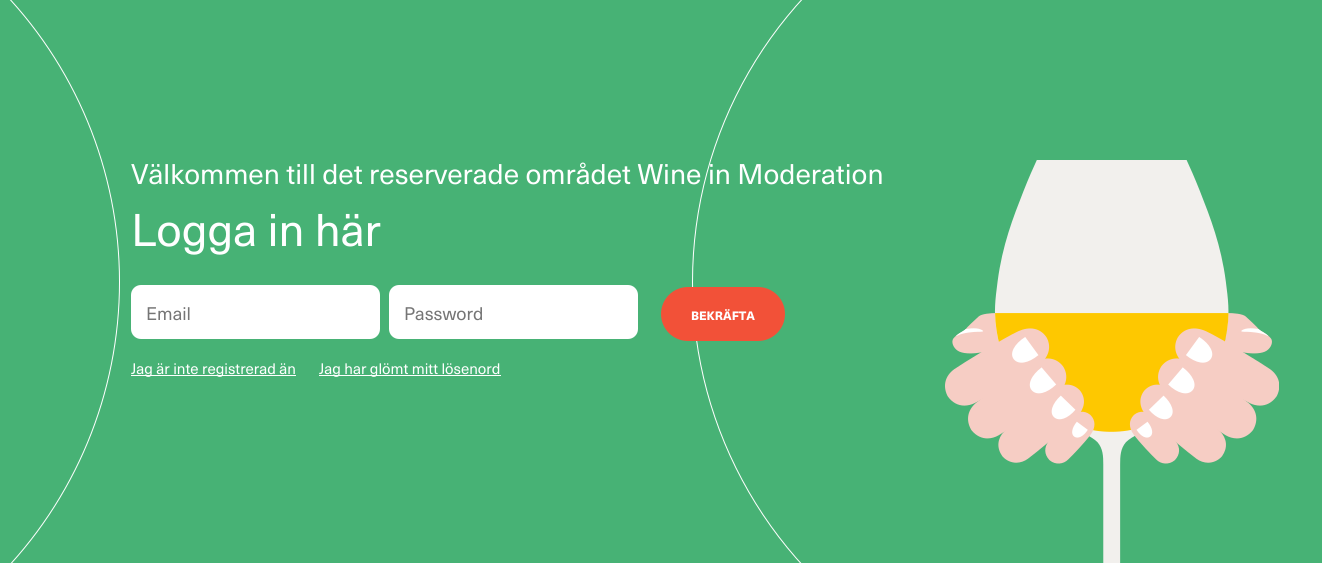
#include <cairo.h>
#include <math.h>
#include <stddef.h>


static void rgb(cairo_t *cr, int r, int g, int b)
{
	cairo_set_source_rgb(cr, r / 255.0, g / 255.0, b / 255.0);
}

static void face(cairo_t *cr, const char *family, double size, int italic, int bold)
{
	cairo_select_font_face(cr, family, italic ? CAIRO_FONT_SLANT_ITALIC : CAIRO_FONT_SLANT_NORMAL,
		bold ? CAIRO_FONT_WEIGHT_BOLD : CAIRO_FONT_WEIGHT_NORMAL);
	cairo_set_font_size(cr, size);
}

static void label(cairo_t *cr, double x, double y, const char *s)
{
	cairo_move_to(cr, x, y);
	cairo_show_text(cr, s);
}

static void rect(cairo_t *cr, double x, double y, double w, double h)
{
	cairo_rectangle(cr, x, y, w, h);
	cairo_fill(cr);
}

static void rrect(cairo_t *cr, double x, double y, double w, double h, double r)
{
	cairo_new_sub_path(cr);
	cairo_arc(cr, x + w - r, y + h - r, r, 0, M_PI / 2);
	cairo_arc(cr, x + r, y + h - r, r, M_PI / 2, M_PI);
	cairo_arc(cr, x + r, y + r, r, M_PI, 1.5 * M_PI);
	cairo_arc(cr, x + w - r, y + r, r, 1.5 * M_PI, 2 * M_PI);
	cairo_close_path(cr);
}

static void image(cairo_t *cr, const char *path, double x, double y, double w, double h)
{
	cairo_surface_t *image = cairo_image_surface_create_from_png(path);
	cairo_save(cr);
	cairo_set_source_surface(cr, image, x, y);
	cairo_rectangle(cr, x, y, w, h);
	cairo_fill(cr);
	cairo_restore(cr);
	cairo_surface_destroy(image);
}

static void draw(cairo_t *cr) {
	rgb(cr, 71, 178, 117);
	cairo_paint(cr);
	rrect(cr, -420.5, -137.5, 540, 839, 419.5);
	rgb(cr, 255, 255, 255);
	cairo_set_line_width(cr, 1);
	cairo_stroke(cr);
	cairo_arc(cr, 1112, 282, 419.5, 0, 2 * M_PI);
	cairo_stroke(cr);
	face(cr, "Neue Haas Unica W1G", 28, 0, 0);
	label(cr, 131, 184, "Välkommen till det reserverade området Wine in Moderation");
	face(cr, "Neue Haas Unica W1G", 45, 0, 0);
	label(cr, 131, 246, "Logga in här");
	rrect(cr, 131, 285, 249, 54, 10);
	cairo_fill(cr);
	face(cr, "Neue Haas Unica W1G", 18, 0, 0);
	rgb(cr, 117, 117, 117);
	label(cr, 146, 320, "Email");
	rgb(cr, 255, 255, 255);
	rrect(cr, 389, 285, 249, 54, 10);
	cairo_fill(cr);
	rgb(cr, 117, 117, 117);
	label(cr, 404, 320, "Password");
	rgb(cr, 242, 81, 56);
	rrect(cr, 661, 287, 124, 54, 27);
	cairo_fill(cr);
	face(cr, "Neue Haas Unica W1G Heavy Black", 12, 0, 0);
	rgb(cr, 255, 255, 255);
	label(cr, 691, 320, "BEKRÄFTA");
	rect(cr, 131, 375, 165, 1);
	face(cr, "Neue Haas Unica W1G", 15, 0, 0);
	label(cr, 131, 374, "Jag är inte registrerad än");
	rect(cr, 319, 375, 182, 1);
	label(cr, 319, 374, "Jag har glömt mitt lösenord");
	image(cr, "image0.png", 945, 160, 334, 403);
}

int main(void) {
	cairo_surface_t *surface = cairo_image_surface_create(CAIRO_FORMAT_RGB24, 1322, 563);
	cairo_t *cr = cairo_create(surface);
	cairo_font_options_t *options = cairo_font_options_create();
	cairo_font_options_set_hint_metrics(options, CAIRO_HINT_METRICS_OFF);
	cairo_font_options_set_hint_style(options, CAIRO_HINT_STYLE_NONE);
	cairo_set_font_options(cr, options);
	cairo_set_miter_limit(cr, 4);
	draw(cr);
	cairo_surface_write_to_png(surface, "render.png");
	cairo_font_options_destroy(options);
	cairo_destroy(cr);
	cairo_surface_destroy(surface);
	return 0;
}
